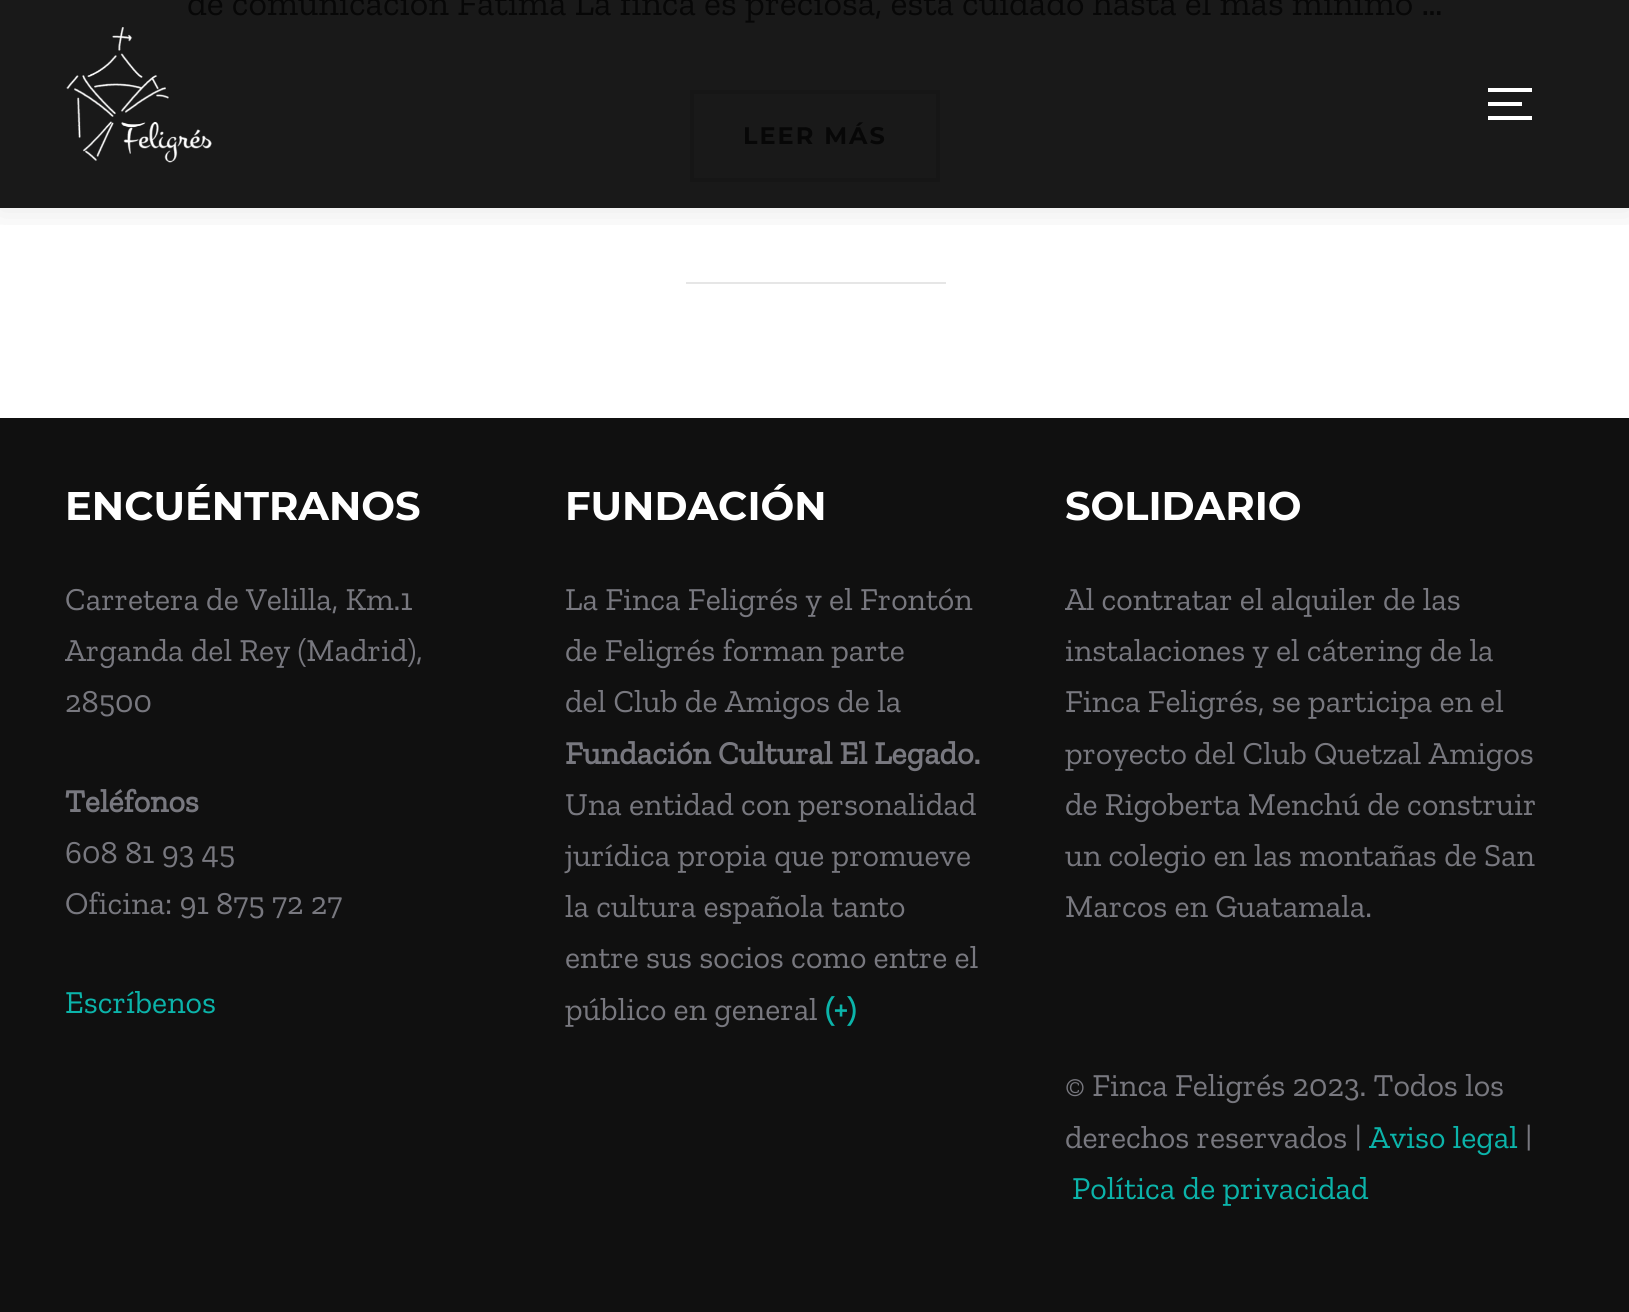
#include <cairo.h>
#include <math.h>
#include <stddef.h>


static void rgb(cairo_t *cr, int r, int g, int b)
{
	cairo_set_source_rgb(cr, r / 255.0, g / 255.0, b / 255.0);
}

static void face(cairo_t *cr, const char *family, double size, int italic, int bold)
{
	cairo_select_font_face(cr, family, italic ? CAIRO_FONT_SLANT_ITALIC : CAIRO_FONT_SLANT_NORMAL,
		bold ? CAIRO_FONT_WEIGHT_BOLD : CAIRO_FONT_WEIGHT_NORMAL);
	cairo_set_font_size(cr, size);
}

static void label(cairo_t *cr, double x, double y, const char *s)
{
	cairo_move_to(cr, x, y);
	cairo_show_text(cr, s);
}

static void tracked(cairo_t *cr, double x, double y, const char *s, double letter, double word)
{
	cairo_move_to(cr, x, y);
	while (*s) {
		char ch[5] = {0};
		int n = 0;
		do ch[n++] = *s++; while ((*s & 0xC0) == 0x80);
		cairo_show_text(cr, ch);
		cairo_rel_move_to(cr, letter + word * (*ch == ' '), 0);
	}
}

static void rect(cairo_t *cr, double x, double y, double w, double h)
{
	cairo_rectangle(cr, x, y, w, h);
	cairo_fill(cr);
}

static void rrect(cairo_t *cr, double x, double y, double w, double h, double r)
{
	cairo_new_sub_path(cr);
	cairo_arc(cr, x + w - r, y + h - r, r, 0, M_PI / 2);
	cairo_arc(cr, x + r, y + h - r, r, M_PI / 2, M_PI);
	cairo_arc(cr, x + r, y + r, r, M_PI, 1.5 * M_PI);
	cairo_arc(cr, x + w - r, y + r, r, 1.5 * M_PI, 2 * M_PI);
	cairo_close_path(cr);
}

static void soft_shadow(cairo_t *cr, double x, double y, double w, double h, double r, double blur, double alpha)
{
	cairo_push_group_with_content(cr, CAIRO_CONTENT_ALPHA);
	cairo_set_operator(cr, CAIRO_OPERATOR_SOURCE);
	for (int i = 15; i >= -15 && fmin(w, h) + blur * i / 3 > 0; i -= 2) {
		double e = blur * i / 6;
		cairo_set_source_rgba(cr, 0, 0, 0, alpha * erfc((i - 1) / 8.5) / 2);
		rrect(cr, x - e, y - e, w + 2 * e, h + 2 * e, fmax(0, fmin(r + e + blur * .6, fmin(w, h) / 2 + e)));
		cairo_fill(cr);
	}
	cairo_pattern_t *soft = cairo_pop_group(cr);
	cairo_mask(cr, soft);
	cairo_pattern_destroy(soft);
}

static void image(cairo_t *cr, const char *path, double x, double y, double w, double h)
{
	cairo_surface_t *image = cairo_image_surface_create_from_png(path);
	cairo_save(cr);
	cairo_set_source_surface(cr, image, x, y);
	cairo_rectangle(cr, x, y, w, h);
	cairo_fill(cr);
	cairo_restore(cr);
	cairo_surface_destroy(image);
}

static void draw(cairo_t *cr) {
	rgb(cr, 255, 255, 255);
	cairo_paint(cr);
	rgb(cr, 25, 25, 25);
	rect(cr, 0, 0, 1629, 208);
	cairo_rectangle(cr, 692, 92, 246, 88);
	rgb(cr, 22, 22, 22);
	cairo_set_line_width(cr, 4);
	cairo_stroke(cr);
	cairo_save(cr);
	cairo_rectangle(cr, 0, 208, 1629, 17);
	cairo_clip(cr);
	rgb(cr, 0, 0, 0);
	soft_shadow(cr, -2, -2, 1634, 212, 0, 18, 0.1);
	cairo_restore(cr);
	image(cr, "image0.png", 66, 27, 146, 136);
	rgb(cr, 255, 255, 255);
	rect(cr, 1488, 88, 44, 4);
	rect(cr, 1488, 102, 34, 4);
	rect(cr, 1488, 116, 44, 4);
	face(cr, "Zilla Slab", 36, 0, 0);
	rgb(cr, 7, 7, 7);
	label(cr, 187, 15, "de comunicación Fátima La finca es preciosa, está cuidado hasta el más mínimo …");
	face(cr, "Montserrat", 24, 0, 1);
	tracked(cr, 743, 144, "LEER MÁS", 2, 0);
	rgb(cr, 230, 230, 230);
	rect(cr, 686, 282, 260, 2);
	rgb(cr, 16, 16, 16);
	rect(cr, 0, 418, 1629, 894);
	face(cr, "Montserrat", 40, 0, 1);
	rgb(cr, 255, 255, 255);
	label(cr, 65, 520, "ENCUÉNTRANOS");
	face(cr, "Zilla Slab", 32, 0, 0);
	rgb(cr, 120, 120, 127);
	label(cr, 65, 610, "Carretera de Velilla, Km.1");
	label(cr, 65, 661, "Arganda del Rey (Madrid),");
	label(cr, 65, 712, "28500");
	face(cr, "Zilla Slab", 32, 0, 1);
	label(cr, 65, 812, "Teléfonos");
	face(cr, "Zilla Slab", 32, 0, 0);
	label(cr, 65, 863, "608 81 93 45");
	label(cr, 65, 914, "Oficina: 91 875 72 27");
	rgb(cr, 11, 180, 170);
	label(cr, 65, 1013, "Escríbenos");
	face(cr, "Montserrat", 40, 0, 1);
	rgb(cr, 255, 255, 255);
	label(cr, 565, 520, "FUNDACIÓN");
	face(cr, "Zilla Slab", 32, 0, 0);
	rgb(cr, 120, 120, 127);
	label(cr, 565, 610, "La Finca Feligrés y el Frontón");
	label(cr, 565, 661, "de Feligrés forman parte");
	label(cr, 565, 712, "del Club de Amigos de la");
	face(cr, "Zilla Slab", 32, 0, 1);
	label(cr, 565, 764, "Fundación Cultural El Legado.");
	face(cr, "Zilla Slab", 32, 0, 0);
	label(cr, 565, 815, "Una entidad con personalidad");
	label(cr, 565, 866, "jurídica propia que promueve");
	label(cr, 565, 917, "la cultura española tanto");
	label(cr, 565, 968, "entre sus socios como entre el");
	label(cr, 565, 1020, "público en general");
	face(cr, "Zilla Slab", 32, 0, 1);
	rgb(cr, 11, 180, 170);
	label(cr, 825, 1020, "(+)");
	face(cr, "Montserrat", 40, 0, 1);
	rgb(cr, 255, 255, 255);
	label(cr, 1065, 520, "SOLIDARIO");
	face(cr, "Zilla Slab", 32, 0, 0);
	rgb(cr, 120, 120, 127);
	label(cr, 1065, 610, "Al contratar el alquiler de las");
	label(cr, 1065, 661, "instalaciones y el cátering de la");
	label(cr, 1065, 712, "Finca Feligrés, se participa en el");
	label(cr, 1065, 764, "proyecto del Club Quetzal Amigos");
	label(cr, 1065, 815, "de Rigoberta Menchú de construir");
	label(cr, 1065, 866, "un colegio en las montañas de San");
	label(cr, 1065, 917, "Marcos en Guatamala.");
	label(cr, 1065, 1096, "© Finca Feligrés 2023. Todos los");
	label(cr, 1065, 1148, "derechos reservados |");
	rgb(cr, 11, 180, 170);
	label(cr, 1369, 1148, "Aviso legal");
	rgb(cr, 120, 120, 127);
	label(cr, 1525, 1148, "|");
	rgb(cr, 11, 180, 170);
	label(cr, 1072, 1199, "Política de privacidad");
}

int main(void) {
	cairo_surface_t *surface = cairo_image_surface_create(CAIRO_FORMAT_RGB24, 1629, 1312);
	cairo_t *cr = cairo_create(surface);
	cairo_font_options_t *options = cairo_font_options_create();
	cairo_font_options_set_hint_metrics(options, CAIRO_HINT_METRICS_OFF);
	cairo_font_options_set_hint_style(options, CAIRO_HINT_STYLE_NONE);
	cairo_set_font_options(cr, options);
	cairo_set_miter_limit(cr, 4);
	draw(cr);
	cairo_surface_write_to_png(surface, "render.png");
	cairo_font_options_destroy(options);
	cairo_destroy(cr);
	cairo_surface_destroy(surface);
	return 0;
}
